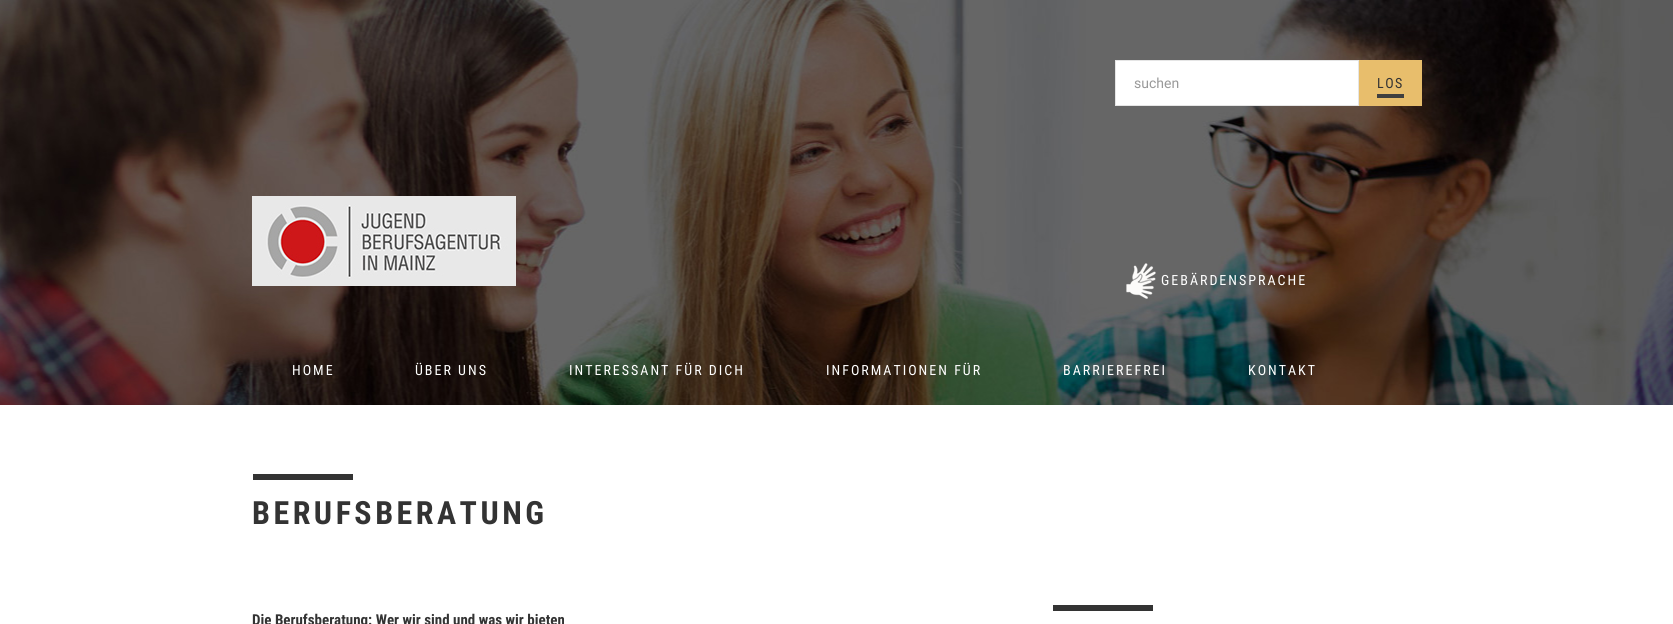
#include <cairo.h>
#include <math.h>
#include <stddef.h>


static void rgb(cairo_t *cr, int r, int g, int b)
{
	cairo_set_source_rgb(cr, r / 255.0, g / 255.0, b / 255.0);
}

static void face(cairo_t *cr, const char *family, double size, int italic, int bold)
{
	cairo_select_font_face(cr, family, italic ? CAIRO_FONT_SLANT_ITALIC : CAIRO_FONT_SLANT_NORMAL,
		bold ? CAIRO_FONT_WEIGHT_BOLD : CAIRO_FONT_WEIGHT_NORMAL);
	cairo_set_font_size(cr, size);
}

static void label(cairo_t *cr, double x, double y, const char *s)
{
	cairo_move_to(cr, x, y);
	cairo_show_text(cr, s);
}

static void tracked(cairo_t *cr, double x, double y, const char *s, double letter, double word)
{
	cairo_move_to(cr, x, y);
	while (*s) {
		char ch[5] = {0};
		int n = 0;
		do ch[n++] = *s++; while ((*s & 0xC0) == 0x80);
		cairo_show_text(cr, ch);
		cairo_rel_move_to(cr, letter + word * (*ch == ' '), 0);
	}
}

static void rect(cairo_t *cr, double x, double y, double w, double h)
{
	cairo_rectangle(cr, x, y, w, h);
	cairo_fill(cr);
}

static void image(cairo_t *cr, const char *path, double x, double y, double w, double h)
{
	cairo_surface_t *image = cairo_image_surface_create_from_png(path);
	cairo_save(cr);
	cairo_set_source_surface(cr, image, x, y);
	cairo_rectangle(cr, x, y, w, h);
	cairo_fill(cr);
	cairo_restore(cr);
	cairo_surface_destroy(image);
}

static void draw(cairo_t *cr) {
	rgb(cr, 255, 255, 255);
	cairo_paint(cr);
	image(cr, "image0.png", 0, 0, 1673, 405);
	rgb(cr, 232, 190, 108);
	rect(cr, 1359, 60, 63, 46);
	rgb(cr, 255, 255, 255);
	cairo_rectangle(cr, 1115.5, 60.5, 243, 45);
	cairo_fill_preserve(cr);
	rgb(cr, 229, 229, 229);
	cairo_set_line_width(cr, 1);
	cairo_stroke(cr);
	face(cr, "Roboto", 14, 0, 0);
	rgb(cr, 153, 153, 153);
	label(cr, 1134, 88, "suchen");
	rgb(cr, 63, 63, 63);
	rect(cr, 1377, 94, 27, 4);
	face(cr, "Roboto Condensed", 14, 0, 0);
	rgb(cr, 51, 51, 51);
	tracked(cr, 1377, 88, "LOS", 1.5, 0);
	image(cr, "image1.png", 252, 196, 264, 90);
	image(cr, "image2.png", 1126, 263, 30, 36);
	rgb(cr, 255, 255, 255);
	tracked(cr, 1161, 285, "GEBÄRDENSPRACHE", 2, 0);
	tracked(cr, 292, 375, "HOME", 2, 0);
	tracked(cr, 415, 375, "ÜBER UNS", 2, 0);
	tracked(cr, 569, 375, "INTERESSANT FÜR DICH", 2, 0);
	tracked(cr, 826, 375, "INFORMATIONEN FÜR", 2, 0);
	tracked(cr, 1063, 375, "BARRIEREFREI", 2, 0);
	tracked(cr, 1248, 375, "KONTAKT", 2, 0);
	rgb(cr, 51, 51, 51);
	rect(cr, 253, 474, 100, 6);
	face(cr, "Roboto Condensed", 32, 0, 1);
	tracked(cr, 252, 524, "BERUFSBERATUNG", 3.5, 0);
	rect(cr, 1053, 605, 100, 6);
	face(cr, "Roboto Condensed", 15, 0, 1);
	label(cr, 252, 625, "Die Berufsberatung: Wer wir sind und was wir bieten");
}

int main(void) {
	cairo_surface_t *surface = cairo_image_surface_create(CAIRO_FORMAT_RGB24, 1673, 624);
	cairo_t *cr = cairo_create(surface);
	cairo_font_options_t *options = cairo_font_options_create();
	cairo_font_options_set_hint_metrics(options, CAIRO_HINT_METRICS_OFF);
	cairo_font_options_set_hint_style(options, CAIRO_HINT_STYLE_NONE);
	cairo_set_font_options(cr, options);
	cairo_set_miter_limit(cr, 4);
	draw(cr);
	cairo_surface_write_to_png(surface, "render.png");
	cairo_font_options_destroy(options);
	cairo_destroy(cr);
	cairo_surface_destroy(surface);
	return 0;
}
